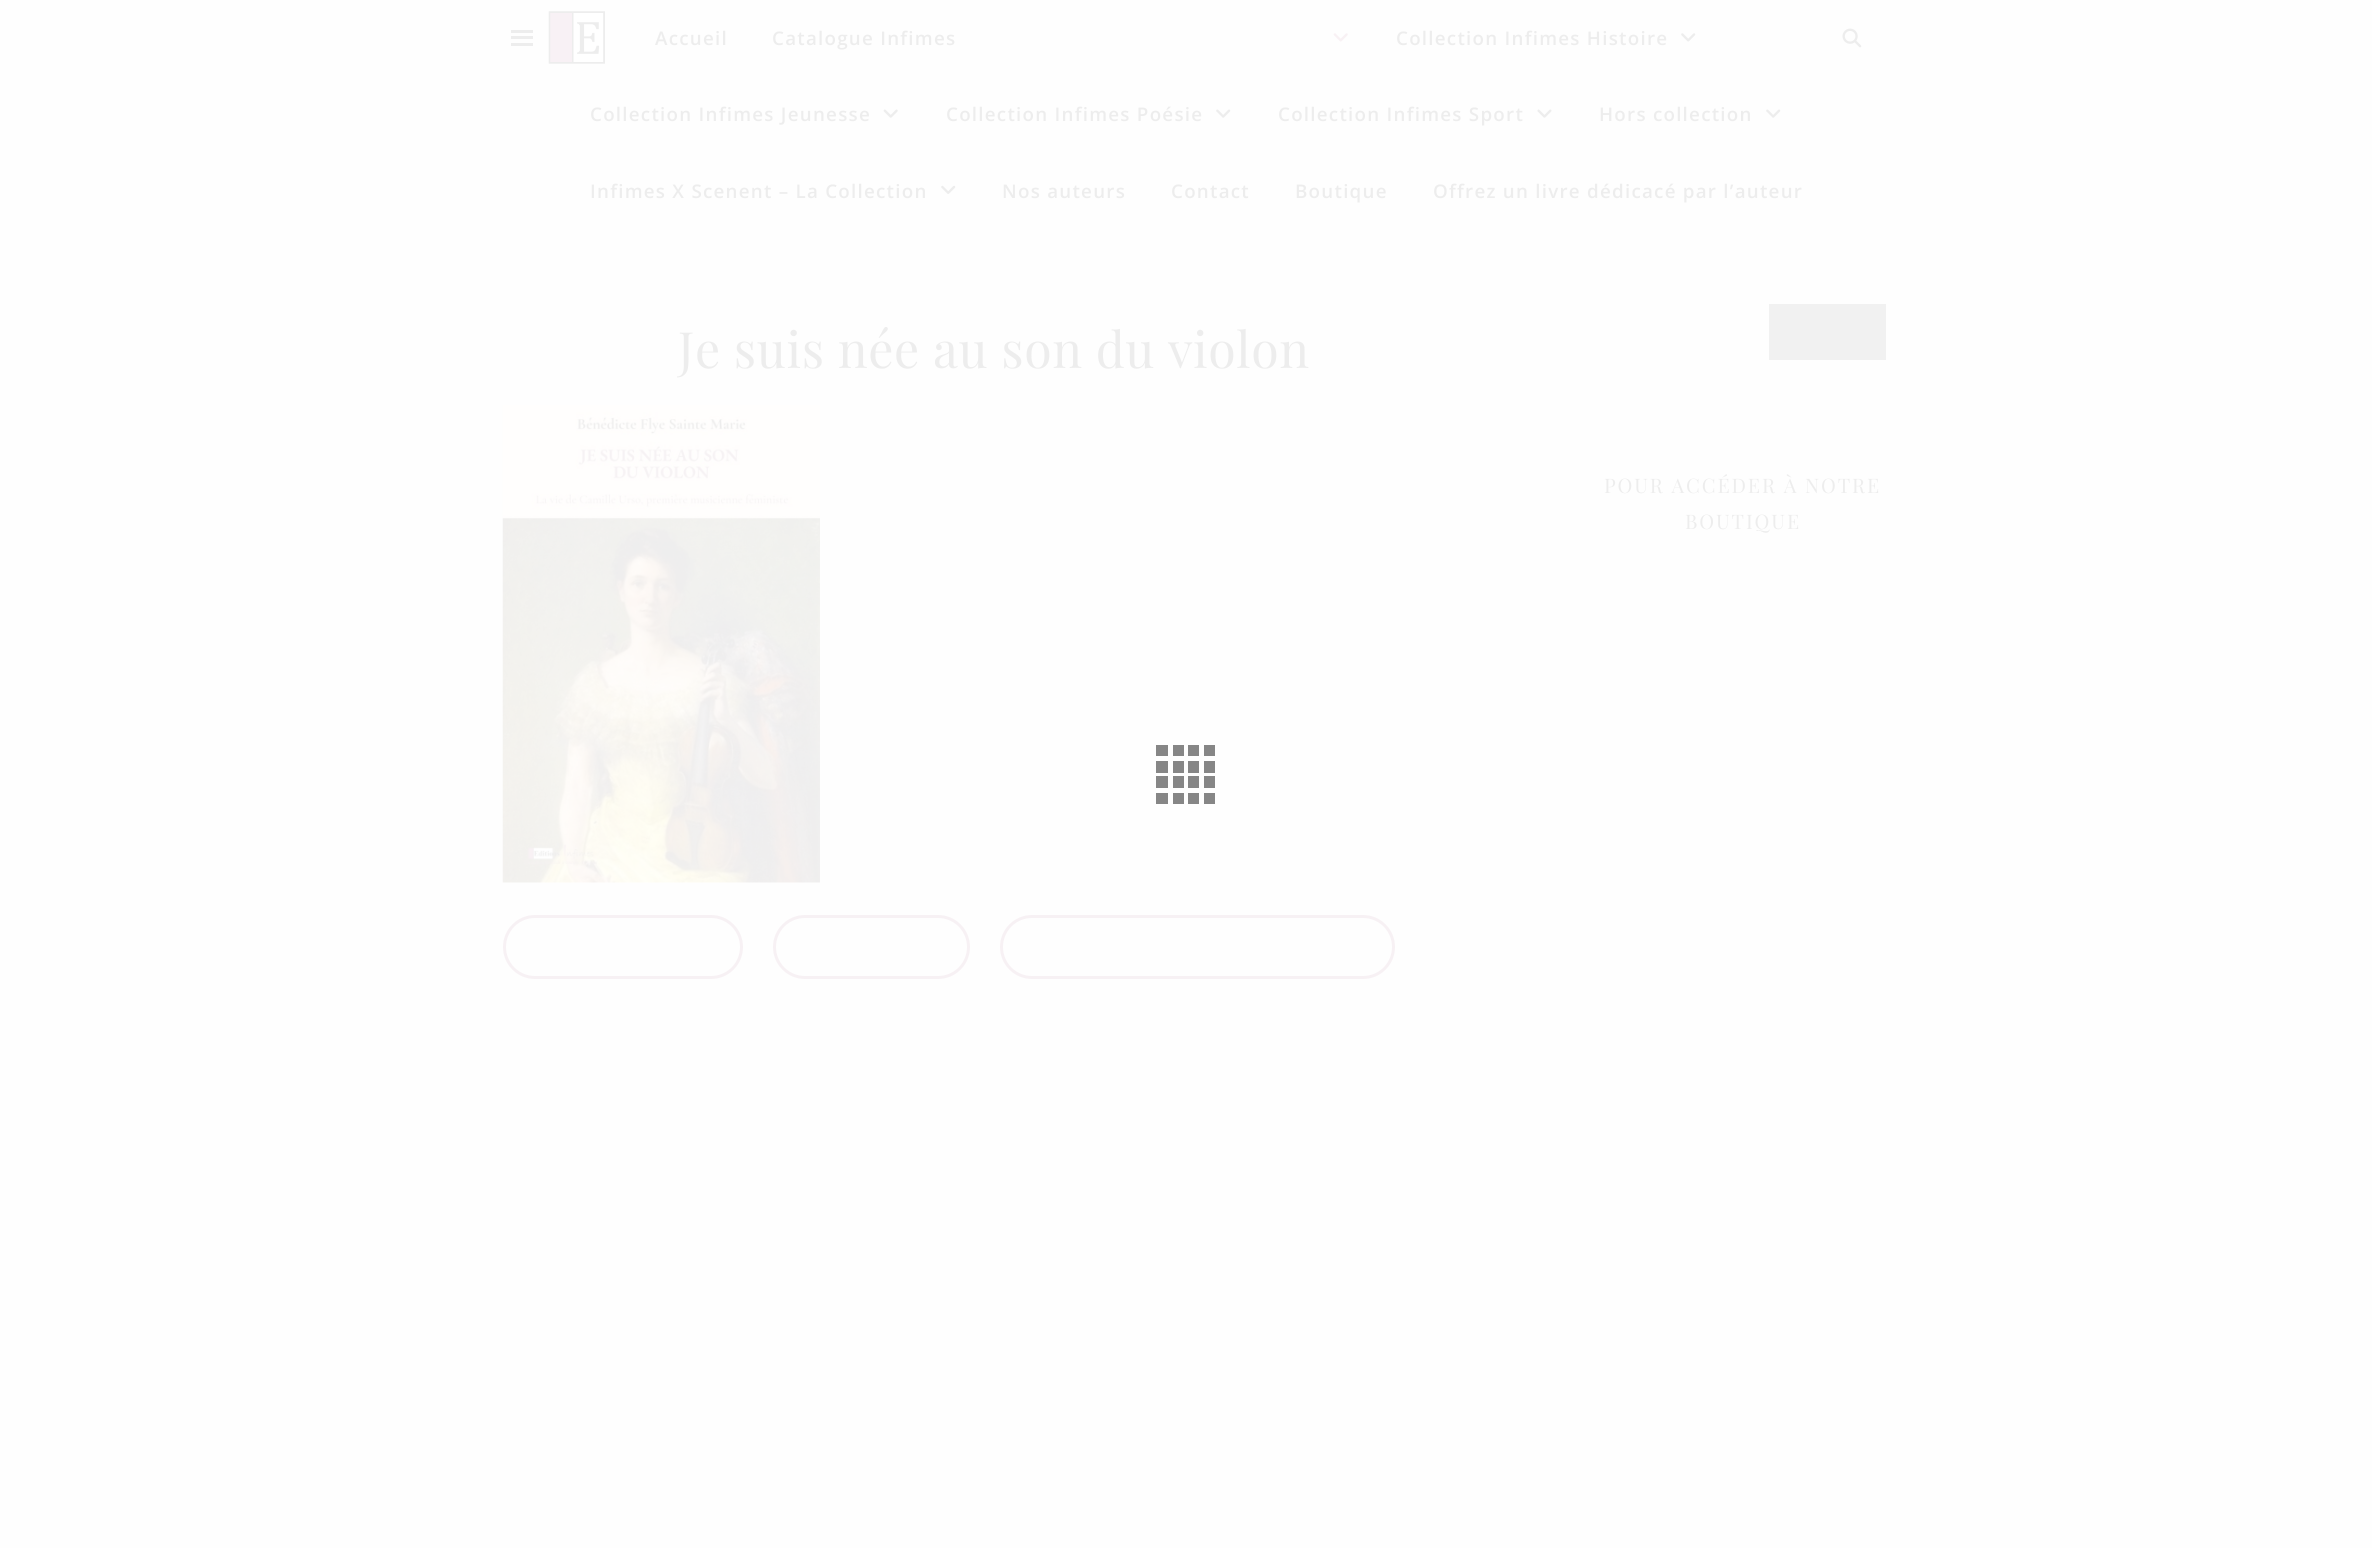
#include <cairo.h>
#include <math.h>
#include <stddef.h>


static void rgb(cairo_t *cr, int r, int g, int b)
{
	cairo_set_source_rgb(cr, r / 255.0, g / 255.0, b / 255.0);
}

static void face(cairo_t *cr, const char *family, double size, int italic, int bold)
{
	cairo_select_font_face(cr, family, italic ? CAIRO_FONT_SLANT_ITALIC : CAIRO_FONT_SLANT_NORMAL,
		bold ? CAIRO_FONT_WEIGHT_BOLD : CAIRO_FONT_WEIGHT_NORMAL);
	cairo_set_font_size(cr, size);
}

static void tracked(cairo_t *cr, double x, double y, const char *s, double letter, double word)
{
	cairo_move_to(cr, x, y);
	while (*s) {
		char ch[5] = {0};
		int n = 0;
		do ch[n++] = *s++; while ((*s & 0xC0) == 0x80);
		cairo_show_text(cr, ch);
		cairo_rel_move_to(cr, letter + word * (*ch == ' '), 0);
	}
}

static void rect(cairo_t *cr, double x, double y, double w, double h)
{
	cairo_rectangle(cr, x, y, w, h);
	cairo_fill(cr);
}

static void rrect(cairo_t *cr, double x, double y, double w, double h, double r)
{
	cairo_new_sub_path(cr);
	cairo_arc(cr, x + w - r, y + h - r, r, 0, M_PI / 2);
	cairo_arc(cr, x + r, y + h - r, r, M_PI / 2, M_PI);
	cairo_arc(cr, x + r, y + r, r, M_PI, 1.5 * M_PI);
	cairo_arc(cr, x + w - r, y + r, r, 1.5 * M_PI, 2 * M_PI);
	cairo_close_path(cr);
}

static void image(cairo_t *cr, const char *path, double x, double y, double w, double h)
{
	cairo_surface_t *image = cairo_image_surface_create_from_png(path);
	cairo_save(cr);
	cairo_set_source_surface(cr, image, x, y);
	cairo_rectangle(cr, x, y, w, h);
	cairo_fill(cr);
	cairo_restore(cr);
	cairo_surface_destroy(image);
}

static void draw(cairo_t *cr) {
	rgb(cr, 254, 254, 254);
	cairo_paint(cr);
	rgb(cr, 237, 237, 237);
	rect(cr, 511, 30, 22, 3);
	rect(cr, 511, 36, 22, 3);
	rect(cr, 511, 43, 22, 3);
	image(cr, "image0.png", 548, 11, 57, 53);
	face(cr, "Open Sans SemiBold", 18.75, 0, 0);
	tracked(cr, 655, 45, "Accueil", 1.25, 0);
	tracked(cr, 772, 45, "Catalogue Infimes", 1.25, 0);
	image(cr, "image1.png", 1333, 33, 15, 9);
	tracked(cr, 1396, 45, "Collection Infimes Histoire", 1.25, 0);
	image(cr, "image2.png", 1681, 33, 15, 9);
	tracked(cr, 590, 121, "Collection Infimes Jeunesse", 1.25, 0);
	image(cr, "image3.png", 883, 109, 15, 9);
	tracked(cr, 946, 121, "Collection Infimes Poésie", 1.25, 0);
	image(cr, "image4.png", 1216, 109, 15, 9);
	tracked(cr, 1278, 121, "Collection Infimes Sport", 1.25, 0);
	image(cr, "image5.png", 1537, 109, 15, 9);
	tracked(cr, 1599, 121, "Hors collection", 1.25, 0);
	image(cr, "image4.png", 1766, 109, 15, 9);
	tracked(cr, 590, 198, "Infimes X Scenent – La Collection", 1.25, 0);
	image(cr, "image6.png", 941, 185, 15, 9);
	tracked(cr, 1002, 198, "Nos auteurs", 1.25, 0);
	tracked(cr, 1171, 198, "Contact", 1.25, 0);
	tracked(cr, 1295, 198, "Boutique", 1.25, 0);
	tracked(cr, 1433, 198, "Offrez un livre dédicacé par l’auteur", 1.25, 0);
	image(cr, "image7.png", 1842, 28, 20, 20);
	face(cr, "Playfair Display", 50, 0, 0);
	tracked(cr, 678, 368, "Je suis née au son du violon", 0.6, 0);
	image(cr, "image8.png", 502, 405, 318, 478);
	rrect(cr, 504.5, 916.5, 237, 61, 30.5);
	rgb(cr, 247, 241, 244);
	cairo_set_line_width(cr, 3);
	cairo_stroke(cr);
	rrect(cr, 774.5, 916.5, 194, 61, 30.5);
	cairo_stroke(cr);
	rrect(cr, 1001.5, 916.5, 392, 61, 30.5);
	cairo_stroke(cr);
	rgb(cr, 241, 241, 241);
	rect(cr, 1769, 304, 117, 56);
	face(cr, "Playfair Display", 20, 0, 0);
	rgb(cr, 237, 237, 237);
	tracked(cr, 1604, 493, "POUR ACCÉDER À NOTRE", 1.9, 0);
	tracked(cr, 1685, 529, "BOUTIQUE", 1.9, 0);
	rgb(cr, 134, 134, 134);
	rect(cr, 1156, 745, 12, 11);
	cairo_set_source_rgba(cr, 0.2, 0.2, 0.2, 0.59);
	rect(cr, 1173, 745, 11, 11);
	rgb(cr, 134, 134, 134);
	rect(cr, 1188, 745, 11, 11);
	rect(cr, 1204, 745, 11, 11);
	cairo_set_source_rgba(cr, 0.2, 0.2, 0.2, 0.59);
	rect(cr, 1156, 761, 12, 12);
	rect(cr, 1173, 761, 11, 12);
	rect(cr, 1188, 761, 11, 12);
	rect(cr, 1204, 761, 11, 12);
	rgb(cr, 134, 134, 134);
	rect(cr, 1156, 776, 12, 12);
	rect(cr, 1173, 776, 11, 12);
	rect(cr, 1188, 776, 11, 12);
	rect(cr, 1204, 776, 11, 12);
	rect(cr, 1156, 793, 12, 11);
	rect(cr, 1173, 793, 11, 11);
	rect(cr, 1188, 793, 11, 11);
	rect(cr, 1204, 793, 11, 11);
}

int main(void) {
	cairo_surface_t *surface = cairo_image_surface_create(CAIRO_FORMAT_RGB24, 2372, 1548);
	cairo_t *cr = cairo_create(surface);
	cairo_font_options_t *options = cairo_font_options_create();
	cairo_font_options_set_hint_metrics(options, CAIRO_HINT_METRICS_OFF);
	cairo_font_options_set_hint_style(options, CAIRO_HINT_STYLE_NONE);
	cairo_set_font_options(cr, options);
	cairo_set_miter_limit(cr, 4);
	draw(cr);
	cairo_surface_write_to_png(surface, "render.png");
	cairo_font_options_destroy(options);
	cairo_destroy(cr);
	cairo_surface_destroy(surface);
	return 0;
}
